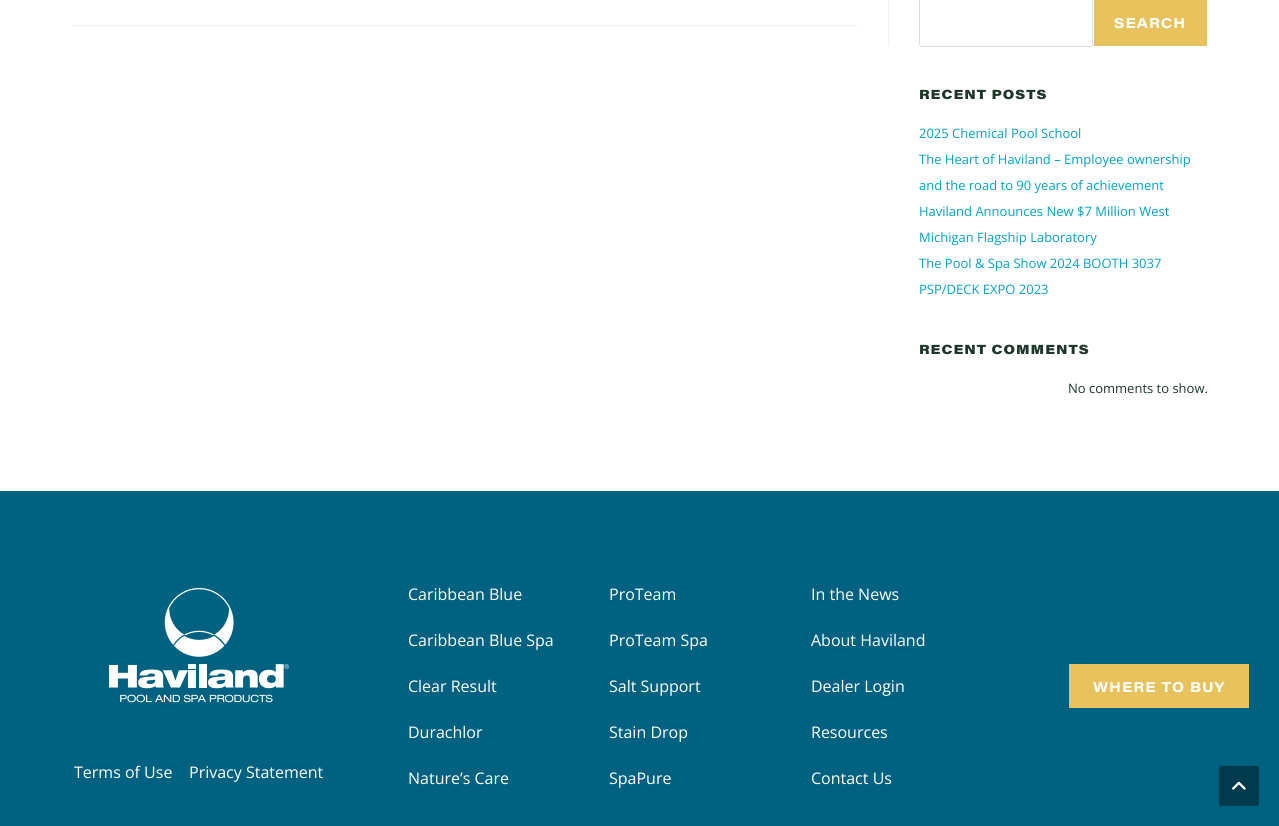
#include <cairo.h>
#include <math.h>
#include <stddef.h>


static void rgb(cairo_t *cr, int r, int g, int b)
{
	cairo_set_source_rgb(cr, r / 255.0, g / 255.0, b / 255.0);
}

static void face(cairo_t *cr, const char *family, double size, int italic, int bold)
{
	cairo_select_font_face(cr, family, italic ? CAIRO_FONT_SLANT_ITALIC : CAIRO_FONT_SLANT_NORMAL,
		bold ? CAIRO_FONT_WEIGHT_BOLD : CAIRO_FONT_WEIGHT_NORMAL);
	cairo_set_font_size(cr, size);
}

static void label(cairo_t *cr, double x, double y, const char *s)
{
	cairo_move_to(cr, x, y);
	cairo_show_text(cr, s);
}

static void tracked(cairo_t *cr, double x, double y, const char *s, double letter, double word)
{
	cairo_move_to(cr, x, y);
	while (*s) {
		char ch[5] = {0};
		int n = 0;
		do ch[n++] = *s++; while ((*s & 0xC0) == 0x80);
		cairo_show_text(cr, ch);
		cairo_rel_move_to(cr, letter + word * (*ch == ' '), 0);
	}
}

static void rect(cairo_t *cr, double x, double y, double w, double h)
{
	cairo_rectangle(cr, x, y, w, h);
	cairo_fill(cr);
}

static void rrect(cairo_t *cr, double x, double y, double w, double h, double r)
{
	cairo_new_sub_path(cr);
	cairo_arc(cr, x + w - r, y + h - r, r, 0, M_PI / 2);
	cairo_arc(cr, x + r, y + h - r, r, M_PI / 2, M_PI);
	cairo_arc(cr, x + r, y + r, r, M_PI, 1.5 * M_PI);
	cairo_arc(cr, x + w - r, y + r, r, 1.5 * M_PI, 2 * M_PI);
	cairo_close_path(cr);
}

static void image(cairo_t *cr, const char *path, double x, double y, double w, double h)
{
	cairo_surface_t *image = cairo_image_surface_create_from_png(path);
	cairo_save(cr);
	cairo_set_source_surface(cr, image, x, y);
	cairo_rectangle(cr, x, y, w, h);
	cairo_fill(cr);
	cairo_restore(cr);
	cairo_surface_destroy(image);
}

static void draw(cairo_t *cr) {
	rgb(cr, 255, 255, 255);
	cairo_paint(cr);
	rgb(cr, 241, 241, 241);
	rect(cr, 888, 0, 1, 46);
	rect(cr, 71, 25, 787, 1);
	rrect(cr, 919.5, -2.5, 173, 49, 2.5);
	rgb(cr, 221, 221, 221);
	cairo_set_line_width(cr, 1);
	cairo_stroke(cr);
	rgb(cr, 232, 194, 92);
	rect(cr, 1094, 0, 113, 46);
	face(cr, "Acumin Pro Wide", 14, 0, 1);
	rgb(cr, 255, 255, 255);
	tracked(cr, 1114, 28, "SEARCH", 1, 0);
	face(cr, "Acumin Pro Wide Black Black", 13, 0, 0);
	rgb(cr, 31, 54, 43);
	tracked(cr, 919, 99, "RECENT POSTS", 1, 0);
	face(cr, "Open Sans", 13, 0, 0);
	rgb(cr, 0, 163, 199);
	label(cr, 919, 138, "2025 Chemical Pool School");
	label(cr, 919, 164, "The Heart of Haviland – Employee ownership");
	label(cr, 919, 190, "and the road to 90 years of achievement");
	label(cr, 919, 216, "Haviland Announces New $7 Million West");
	label(cr, 919, 242, "Michigan Flagship Laboratory");
	label(cr, 919, 268, "The Pool & Spa Show 2024 BOOTH 3037");
	label(cr, 919, 294, "PSP/DECK EXPO 2023");
	face(cr, "Acumin Pro Wide Black Black", 13, 0, 0);
	rgb(cr, 31, 54, 43);
	tracked(cr, 919, 354, "RECENT COMMENTS", 1, 0);
	face(cr, "Open Sans", 13, 0, 0);
	label(cr, 1068, 393, "No comments to show.");
	rgb(cr, 0, 97, 128);
	rect(cr, 0, 491, 1279, 335);
	face(cr, "Open Sans", 16, 0, 0);
	rgb(cr, 255, 255, 255);
	label(cr, 408, 600, "Caribbean Blue");
	label(cr, 408, 646, "Caribbean Blue Spa");
	label(cr, 408, 692, "Clear Result");
	label(cr, 408, 738, "Durachlor");
	label(cr, 408, 784, "Nature’s Care");
	label(cr, 609, 600, "ProTeam");
	label(cr, 609, 646, "ProTeam Spa");
	label(cr, 609, 692, "Salt Support");
	label(cr, 609, 738, "Stain Drop");
	label(cr, 609, 784, "SpaPure");
	label(cr, 811, 600, "In the News");
	label(cr, 811, 646, "About Haviland");
	label(cr, 811, 692, "Dealer Login");
	label(cr, 811, 738, "Resources");
	label(cr, 811, 784, "Contact Us");
	rgb(cr, 232, 194, 92);
	rect(cr, 1069, 664, 180, 44);
	face(cr, "Acumin Pro Wide", 14, 0, 1);
	rgb(cr, 255, 255, 255);
	tracked(cr, 1093, 692, "WHERE TO BUY", 1, 0);
	image(cr, "image0.png", 109, 588, 180, 115);
	face(cr, "Open Sans", 16, 0, 0);
	label(cr, 74, 778, "Terms of Use");
	label(cr, 189, 778, "Privacy Statement");
	rgb(cr, 0, 58, 77);
	rrect(cr, 1219, 766, 40, 40, 2);
	cairo_fill(cr);
	image(cr, "image1.png", 1232, 781, 14, 9);
}

int main(void) {
	cairo_surface_t *surface = cairo_image_surface_create(CAIRO_FORMAT_RGB24, 1279, 826);
	cairo_t *cr = cairo_create(surface);
	cairo_font_options_t *options = cairo_font_options_create();
	cairo_font_options_set_hint_metrics(options, CAIRO_HINT_METRICS_OFF);
	cairo_font_options_set_hint_style(options, CAIRO_HINT_STYLE_NONE);
	cairo_set_font_options(cr, options);
	cairo_set_miter_limit(cr, 4);
	draw(cr);
	cairo_surface_write_to_png(surface, "render.png");
	cairo_font_options_destroy(options);
	cairo_destroy(cr);
	cairo_surface_destroy(surface);
	return 0;
}
